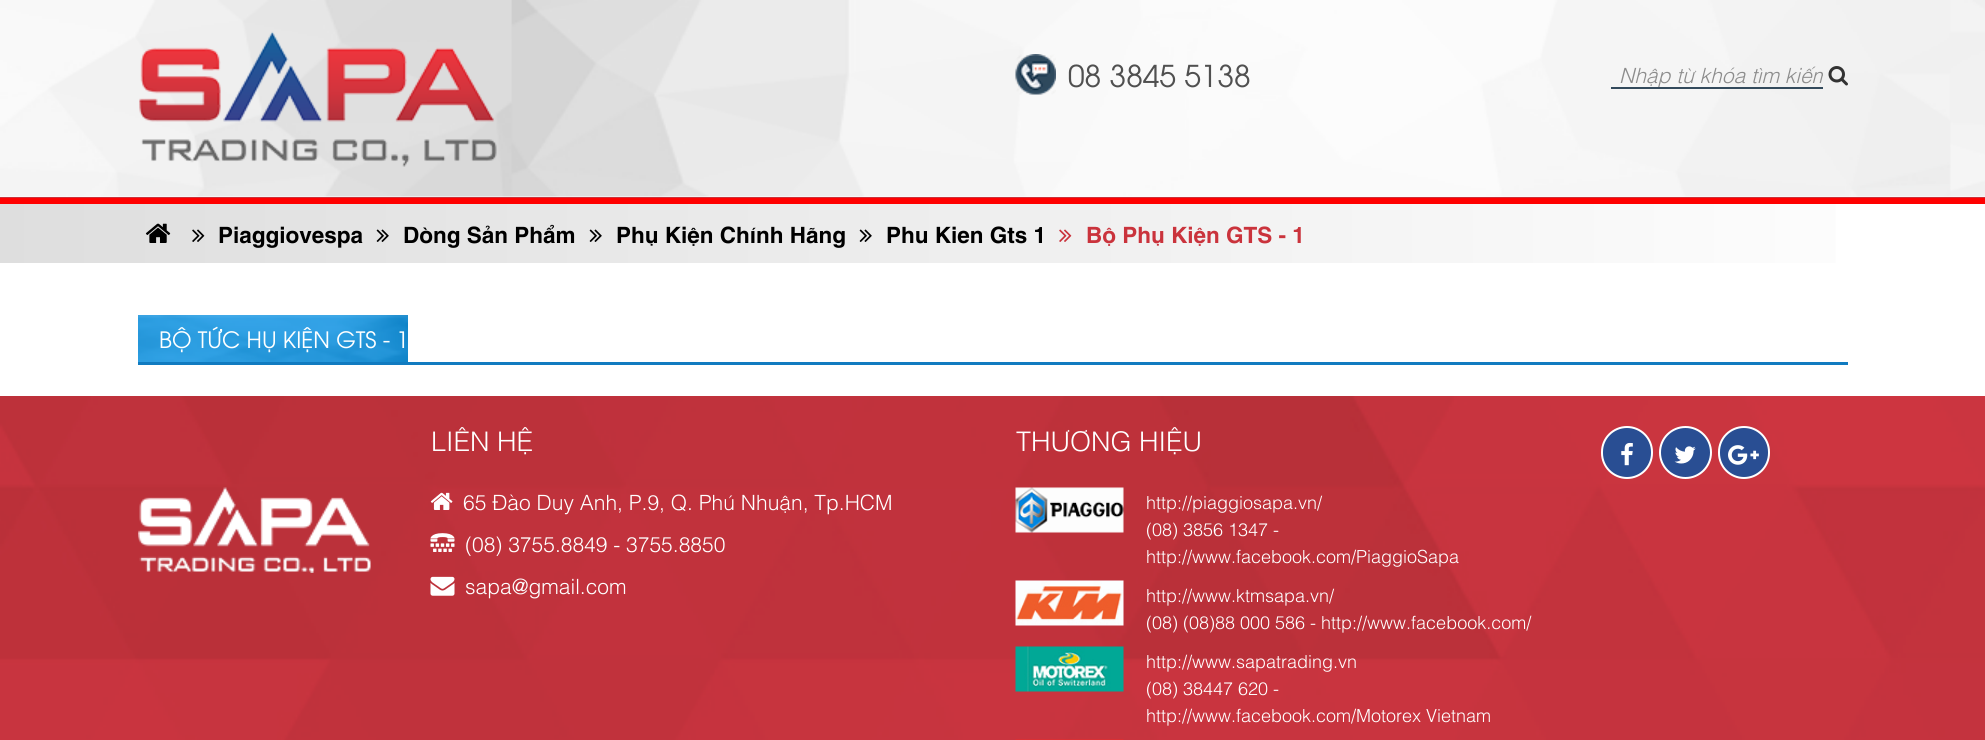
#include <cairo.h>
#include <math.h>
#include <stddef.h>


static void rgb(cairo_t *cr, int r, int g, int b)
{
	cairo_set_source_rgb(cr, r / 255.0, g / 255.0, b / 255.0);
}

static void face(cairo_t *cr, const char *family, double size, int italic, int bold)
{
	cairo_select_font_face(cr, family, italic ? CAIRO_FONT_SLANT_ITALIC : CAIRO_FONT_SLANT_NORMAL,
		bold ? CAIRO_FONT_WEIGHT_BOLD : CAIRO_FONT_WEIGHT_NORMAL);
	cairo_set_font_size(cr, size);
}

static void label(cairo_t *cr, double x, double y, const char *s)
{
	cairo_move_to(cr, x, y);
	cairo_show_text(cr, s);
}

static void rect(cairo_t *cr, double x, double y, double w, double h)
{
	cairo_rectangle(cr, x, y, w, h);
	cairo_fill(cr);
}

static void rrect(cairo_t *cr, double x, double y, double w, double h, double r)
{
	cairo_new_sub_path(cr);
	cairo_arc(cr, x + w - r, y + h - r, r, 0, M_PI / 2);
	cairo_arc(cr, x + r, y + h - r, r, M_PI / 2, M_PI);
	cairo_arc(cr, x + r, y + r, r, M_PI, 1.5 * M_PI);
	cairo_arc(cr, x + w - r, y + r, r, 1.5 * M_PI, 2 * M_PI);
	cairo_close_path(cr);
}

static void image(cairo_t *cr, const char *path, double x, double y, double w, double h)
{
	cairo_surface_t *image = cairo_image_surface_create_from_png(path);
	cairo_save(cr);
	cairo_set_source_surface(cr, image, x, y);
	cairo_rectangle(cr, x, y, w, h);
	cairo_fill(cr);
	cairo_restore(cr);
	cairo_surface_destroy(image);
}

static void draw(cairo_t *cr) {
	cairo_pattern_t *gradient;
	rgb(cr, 255, 255, 255);
	cairo_paint(cr);
	image(cr, "image0.png", 0, 0, 1985, 197);
	image(cr, "image1.png", 139, 31, 358, 136);
	image(cr, "image2.png", 1015, 54, 41, 41);
	face(cr, "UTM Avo", 30, 0, 0);
	rgb(cr, 80, 80, 80);
	label(cr, 1068, 87, "08 3845 5138");
	rgb(cr, 51, 74, 92);
	rect(cr, 1611, 87, 212, 2);
	cairo_save(cr);
	cairo_rectangle(cr, 1619, 60, 204, 27);
	cairo_clip(cr);
	face(cr, "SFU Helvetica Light", 21, 1, 0);
	rgb(cr, 140, 140, 140);
	label(cr, 1619, 83, "Nhập từ khóa tìm kiếm");
	cairo_restore(cr);
	image(cr, "image3.png", 1828, 66, 20, 20);
	rgb(cr, 202, 51, 60);
	rect(cr, 0, 197, 1985, 1);
	gradient = cairo_pattern_create_linear(0, 232, 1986, 232);
	cairo_pattern_add_color_stop_rgba(gradient, 0, 0.871, 0.871, 0.871, 1);
	cairo_pattern_add_color_stop_rgba(gradient, 1, 1, 1, 1, 1);
	cairo_set_source(cr, gradient);
	cairo_pattern_destroy(gradient);
	rect(cr, 0, 204, 1836, 59);
	rgb(cr, 255, 0, 0);
	rect(cr, 0, 198, 1985, 6);
	image(cr, "image4.png", 145, 223, 26, 20);
	image(cr, "image5.png", 192, 229, 13, 13);
	face(cr, "SFU Helvetica", 22.5, 0, 1);
	rgb(cr, 0, 0, 0);
	label(cr, 218, 243, "Piaggiovespa");
	image(cr, "image6.png", 376, 229, 13, 13);
	label(cr, 403, 243, "Dòng Sản Phẩm");
	image(cr, "image7.png", 589, 229, 13, 13);
	label(cr, 616, 243, "Phụ Kiện Chính Hãng");
	image(cr, "image8.png", 859, 229, 13, 13);
	label(cr, 886, 243, "Phu Kien Gts 1");
	image(cr, "image9.png", 1059, 229, 13, 13);
	rgb(cr, 202, 51, 60);
	label(cr, 1086, 243, "Bộ Phụ Kiện GTS - 1");
	image(cr, "image10.png", 138, 315, 270, 47);
	rgb(cr, 17, 123, 192);
	rect(cr, 138, 362, 1710, 3);
	face(cr, "UTM Avo", 22.5, 0, 0);
	rgb(cr, 255, 255, 255);
	label(cr, 159, 348, "BỘ TỨC HỤ KIỆN GTS - 1");
	image(cr, "image11.png", 0, 396, 1985, 344);
	image(cr, "image12.png", 138, 487, 233, 86);
	face(cr, "SFU Helvetica Light", 27, 0, 0);
	label(cr, 431, 451, "LIÊN HỆ");
	image(cr, "image13.png", 430, 492, 23, 18);
	face(cr, "SFU Helvetica Light", 21, 0, 0);
	label(cr, 463, 510, "65 Đào Duy Anh, P.9, Q. Phú Nhuận, Tp.HCM");
	image(cr, "image14.png", 430, 533, 25, 19);
	label(cr, 465, 552, "(08) 3755.8849 - 3755.8850");
	image(cr, "image15.png", 430, 576, 25, 20);
	label(cr, 465, 594, "sapa@gmail.com");
	face(cr, "SFU Helvetica Light", 27, 0, 0);
	label(cr, 1016, 451, "THƯƠNG HIỆU");
	image(cr, "image16.png", 1015, 487, 109, 46);
	face(cr, "SFU Helvetica Light", 18, 0, 0);
	label(cr, 1146, 509, "http://piaggiosapa.vn/");
	label(cr, 1146, 536, "(08) 3856 1347 -");
	label(cr, 1146, 563, "http://www.facebook.com/PiaggioSapa");
	image(cr, "image17.png", 1015, 580, 109, 46);
	label(cr, 1146, 602, "http://www.ktmsapa.vn/");
	label(cr, 1146, 629, "(08) (08)88 000 586 - http://www.facebook.com/");
	image(cr, "image18.png", 1015, 646, 109, 46);
	label(cr, 1146, 668, "http://www.sapatrading.vn");
	label(cr, 1146, 695, "(08) 38447 620 -");
	label(cr, 1146, 722, "http://www.facebook.com/Motorex Vietnam");
	image(cr, "image19.png", 1015, 739, 109, 1);
	rgb(cr, 41, 78, 147);
	rrect(cr, 1602, 427, 50, 51, 25);
	cairo_fill_preserve(cr);
	rgb(cr, 255, 255, 255);
	cairo_stroke(cr);
	image(cr, "image20.png", 1621, 442, 12, 24);
	rgb(cr, 41, 78, 147);
	cairo_arc(cr, 1685.5, 452.5, 25.5, 0, 2 * M_PI);
	cairo_fill_preserve(cr);
	rgb(cr, 255, 255, 255);
	cairo_stroke(cr);
	image(cr, "image21.png", 1674, 446, 22, 18);
	rgb(cr, 41, 78, 147);
	rrect(cr, 1719, 427, 50, 51, 25);
	cairo_fill_preserve(cr);
	rgb(cr, 255, 255, 255);
	cairo_stroke(cr);
	image(cr, "image22.png", 1728, 445, 31, 20);
}

int main(void) {
	cairo_surface_t *surface = cairo_image_surface_create(CAIRO_FORMAT_RGB24, 1985, 740);
	cairo_t *cr = cairo_create(surface);
	cairo_font_options_t *options = cairo_font_options_create();
	cairo_font_options_set_hint_metrics(options, CAIRO_HINT_METRICS_OFF);
	cairo_font_options_set_hint_style(options, CAIRO_HINT_STYLE_NONE);
	cairo_set_font_options(cr, options);
	cairo_set_miter_limit(cr, 4);
	draw(cr);
	cairo_surface_write_to_png(surface, "render.png");
	cairo_font_options_destroy(options);
	cairo_destroy(cr);
	cairo_surface_destroy(surface);
	return 0;
}
